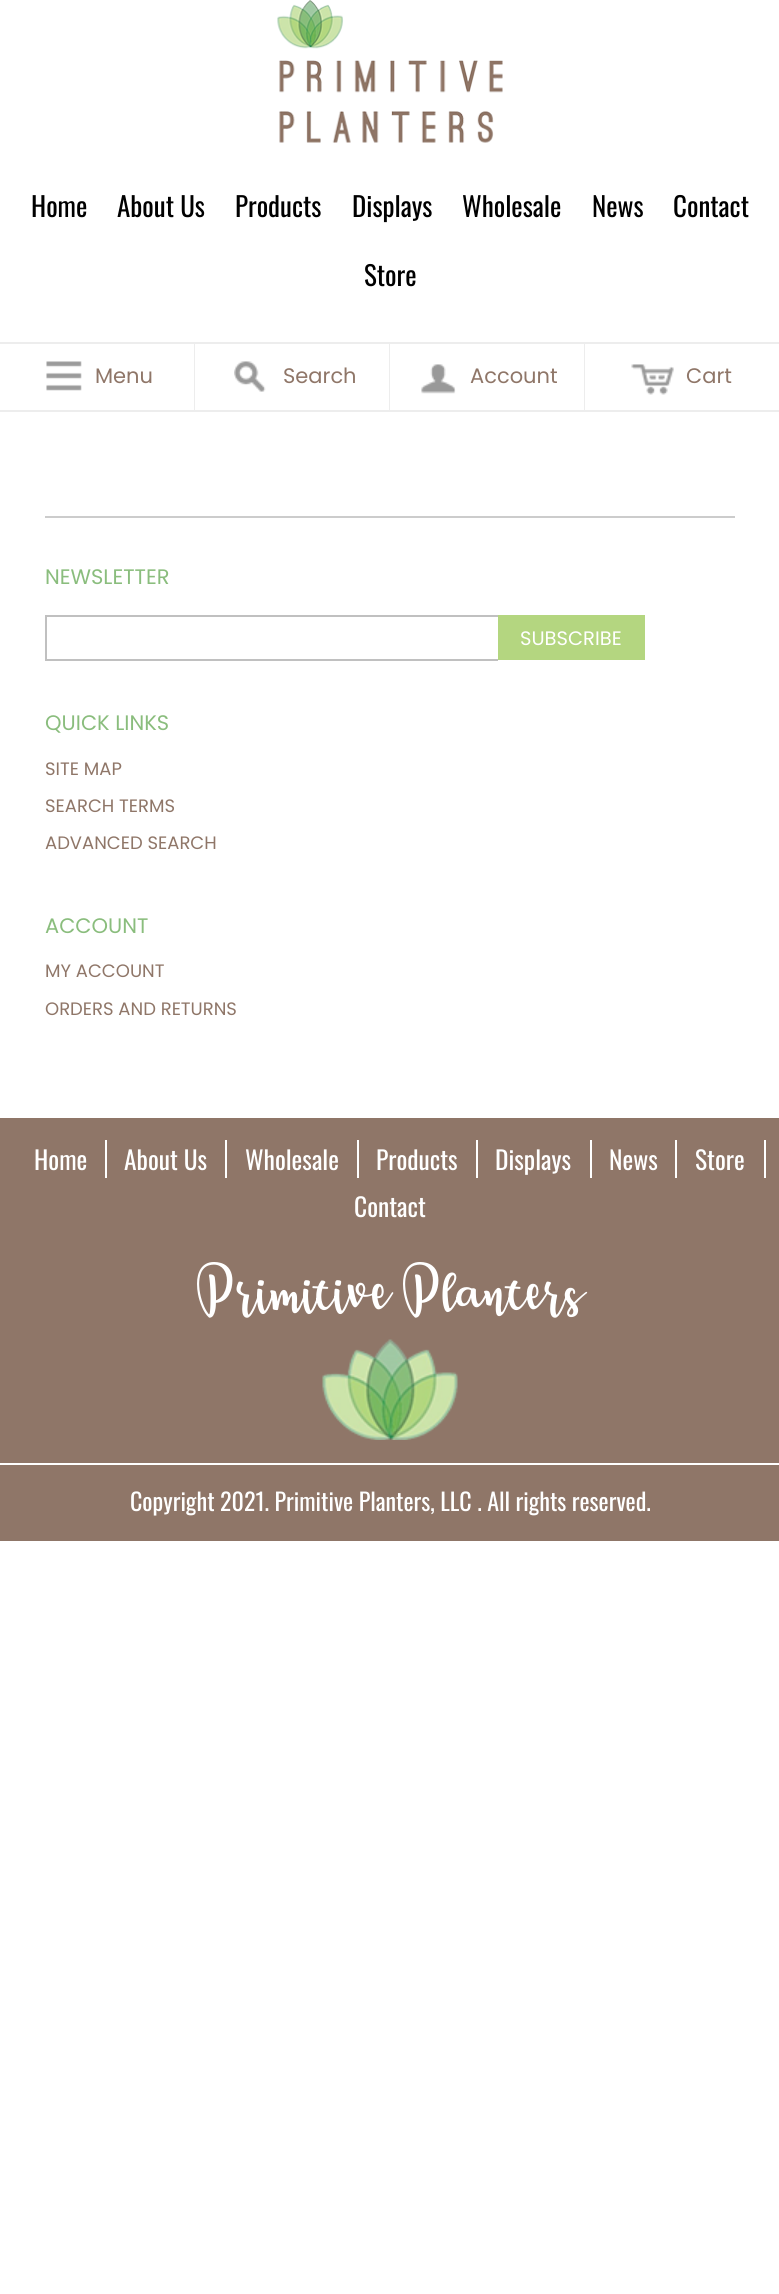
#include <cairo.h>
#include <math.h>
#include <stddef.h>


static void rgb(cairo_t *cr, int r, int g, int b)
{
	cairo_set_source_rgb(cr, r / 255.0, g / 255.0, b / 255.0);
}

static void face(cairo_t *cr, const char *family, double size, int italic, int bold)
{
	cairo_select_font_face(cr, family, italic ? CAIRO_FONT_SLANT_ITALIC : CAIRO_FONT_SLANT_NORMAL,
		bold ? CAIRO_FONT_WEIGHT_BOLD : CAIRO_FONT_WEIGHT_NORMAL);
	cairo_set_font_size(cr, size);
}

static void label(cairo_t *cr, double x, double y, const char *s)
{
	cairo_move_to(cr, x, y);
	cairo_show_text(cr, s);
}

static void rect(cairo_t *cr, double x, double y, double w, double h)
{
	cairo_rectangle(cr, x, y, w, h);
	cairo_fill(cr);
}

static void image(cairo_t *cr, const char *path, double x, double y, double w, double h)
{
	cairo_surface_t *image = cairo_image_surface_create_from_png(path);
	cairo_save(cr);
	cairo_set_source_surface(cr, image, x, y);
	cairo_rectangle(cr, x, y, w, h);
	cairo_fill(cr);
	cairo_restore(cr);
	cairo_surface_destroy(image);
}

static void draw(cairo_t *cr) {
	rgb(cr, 255, 255, 255);
	cairo_paint(cr);
	image(cr, "image0.png", 277, 0, 226, 143);
	face(cr, "Oswald", 27, 0, 0);
	rgb(cr, 0, 0, 0);
	label(cr, 31, 217, "Home");
	label(cr, 117, 217, "About Us");
	label(cr, 235, 217, "Products");
	label(cr, 352, 217, "Displays");
	label(cr, 462, 217, "Wholesale");
	label(cr, 592, 217, "News");
	label(cr, 673, 217, "Contact");
	label(cr, 364, 286, "Store");
	rgb(cr, 237, 237, 237);
	rect(cr, 0, 342, 779, 2);
	rect(cr, 0, 410, 779, 2);
	rect(cr, 194, 344, 1, 66);
	image(cr, "image1.png", 46, 361, 36, 30);
	face(cr, "Poppins", 21, 0, 0);
	rgb(cr, 143, 118, 104);
	label(cr, 95, 383, "Menu");
	rgb(cr, 237, 237, 237);
	rect(cr, 389, 344, 1, 66);
	image(cr, "image2.png", 234, 361, 32, 31);
	rgb(cr, 143, 118, 104);
	label(cr, 283, 383, "Search");
	rgb(cr, 237, 237, 237);
	rect(cr, 584, 344, 1, 66);
	image(cr, "image3.png", 421, 364, 35, 30);
	rgb(cr, 143, 118, 104);
	label(cr, 470, 383, "Account");
	image(cr, "image4.png", 631, 364, 43, 31);
	label(cr, 686, 383, "Cart");
	rgb(cr, 204, 204, 204);
	rect(cr, 45, 516, 690, 2);
	rgb(cr, 138, 189, 125);
	label(cr, 45, 584, "NEWSLETTER");
	rgb(cr, 192, 192, 192);
	rect(cr, 45, 615, 453, 2);
	rect(cr, 45, 659, 453, 2);
	rect(cr, 45, 615, 2, 45);
	rgb(cr, 180, 214, 128);
	rect(cr, 498, 615, 147, 45);
	face(cr, "Poppins", 19.5, 0, 0);
	rgb(cr, 255, 255, 255);
	label(cr, 520, 645, "SUBSCRIBE");
	face(cr, "Poppins", 21, 0, 0);
	rgb(cr, 138, 189, 125);
	label(cr, 45, 730, "QUICK LINKS");
	face(cr, "Poppins", 18, 0, 0);
	rgb(cr, 143, 118, 104);
	label(cr, 45, 775, "SITE MAP");
	label(cr, 45, 812, "SEARCH TERMS");
	label(cr, 45, 849, "ADVANCED SEARCH");
	face(cr, "Poppins", 21, 0, 0);
	rgb(cr, 138, 189, 125);
	label(cr, 45, 933, "ACCOUNT");
	face(cr, "Poppins", 18, 0, 0);
	rgb(cr, 143, 118, 104);
	label(cr, 45, 977, "MY ACCOUNT");
	label(cr, 45, 1015, "ORDERS AND RETURNS");
	rect(cr, 0, 1118, 779, 423);
	rgb(cr, 255, 255, 255);
	rect(cr, 105, 1140, 2, 38);
	face(cr, "Oswald", 25.5, 0, 0);
	label(cr, 34, 1170, "Home");
	rect(cr, 225, 1140, 2, 38);
	label(cr, 124, 1170, "About Us");
	rect(cr, 357, 1140, 2, 38);
	label(cr, 245, 1170, "Wholesale");
	rect(cr, 476, 1140, 2, 38);
	label(cr, 376, 1170, "Products");
	rect(cr, 590, 1140, 2, 38);
	label(cr, 495, 1170, "Displays");
	rect(cr, 675, 1140, 2, 38);
	label(cr, 609, 1170, "News");
	rect(cr, 764, 1140, 2, 38);
	label(cr, 695, 1170, "Store");
	label(cr, 354, 1217, "Contact");
	face(cr, "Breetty", 54, 0, 0);
	label(cr, 197, 1311, "Primitive Planters");
	rect(cr, 0, 1463, 779, 2);
	image(cr, "image5.png", 322, 1339, 136, 101);
	face(cr, "Oswald", 24, 0, 0);
	label(cr, 130, 1511, "Copyright 2021. Primitive Planters, LLC . All rights reserved.");
}

int main(void) {
	cairo_surface_t *surface = cairo_image_surface_create(CAIRO_FORMAT_RGB24, 779, 2294);
	cairo_t *cr = cairo_create(surface);
	cairo_font_options_t *options = cairo_font_options_create();
	cairo_font_options_set_hint_metrics(options, CAIRO_HINT_METRICS_OFF);
	cairo_font_options_set_hint_style(options, CAIRO_HINT_STYLE_NONE);
	cairo_set_font_options(cr, options);
	cairo_set_miter_limit(cr, 4);
	draw(cr);
	cairo_surface_write_to_png(surface, "render.png");
	cairo_font_options_destroy(options);
	cairo_destroy(cr);
	cairo_surface_destroy(surface);
	return 0;
}
